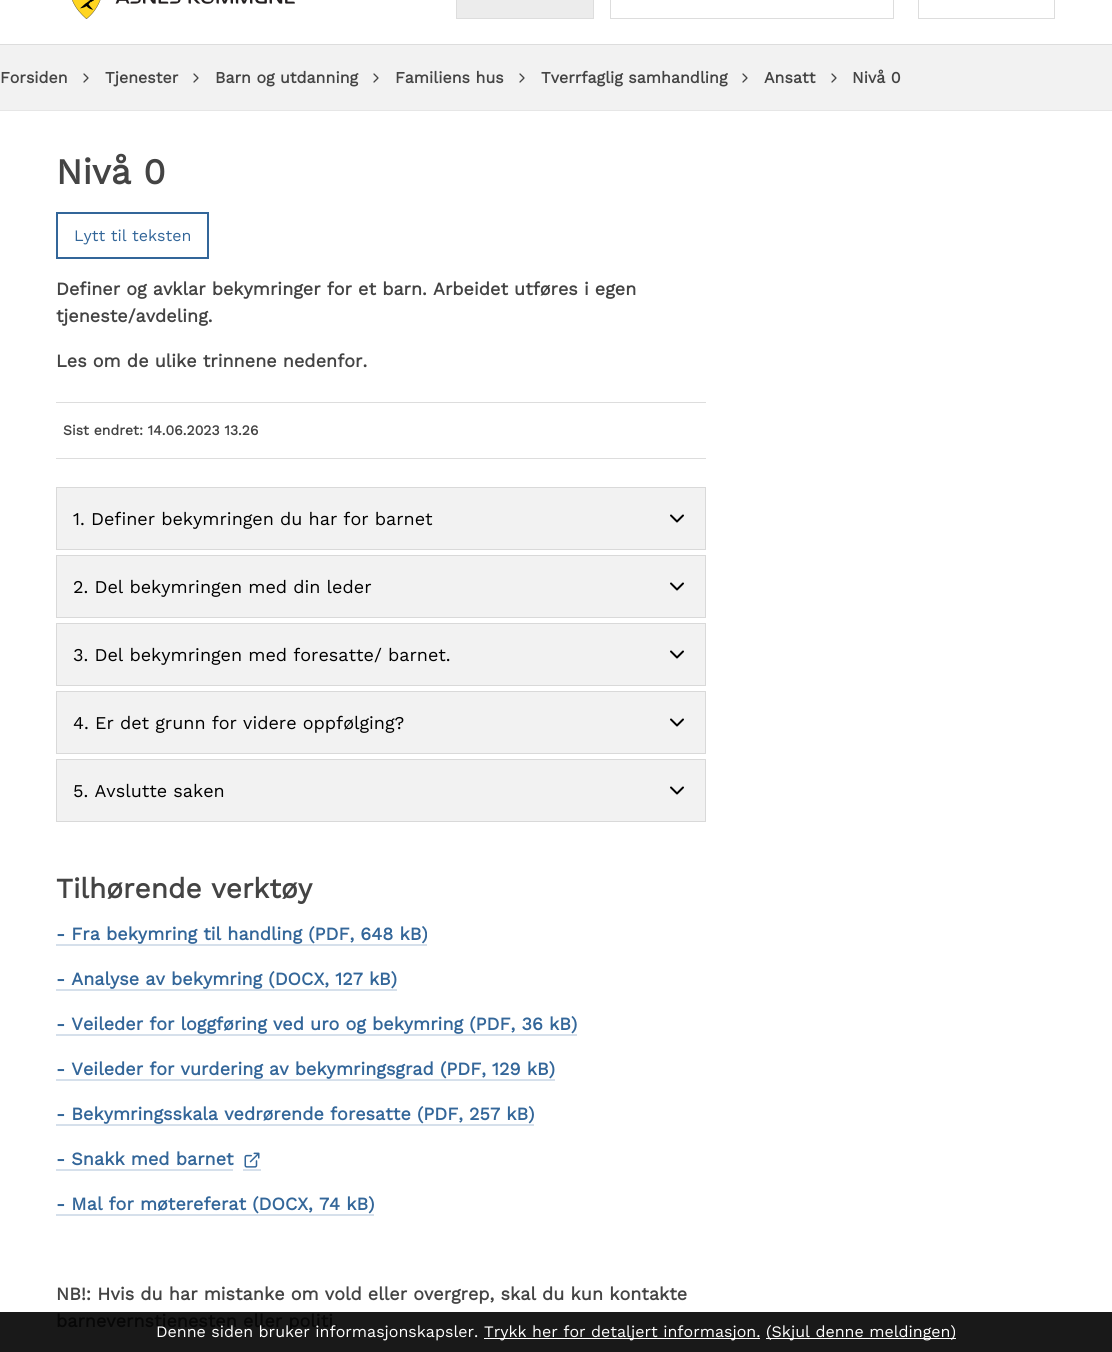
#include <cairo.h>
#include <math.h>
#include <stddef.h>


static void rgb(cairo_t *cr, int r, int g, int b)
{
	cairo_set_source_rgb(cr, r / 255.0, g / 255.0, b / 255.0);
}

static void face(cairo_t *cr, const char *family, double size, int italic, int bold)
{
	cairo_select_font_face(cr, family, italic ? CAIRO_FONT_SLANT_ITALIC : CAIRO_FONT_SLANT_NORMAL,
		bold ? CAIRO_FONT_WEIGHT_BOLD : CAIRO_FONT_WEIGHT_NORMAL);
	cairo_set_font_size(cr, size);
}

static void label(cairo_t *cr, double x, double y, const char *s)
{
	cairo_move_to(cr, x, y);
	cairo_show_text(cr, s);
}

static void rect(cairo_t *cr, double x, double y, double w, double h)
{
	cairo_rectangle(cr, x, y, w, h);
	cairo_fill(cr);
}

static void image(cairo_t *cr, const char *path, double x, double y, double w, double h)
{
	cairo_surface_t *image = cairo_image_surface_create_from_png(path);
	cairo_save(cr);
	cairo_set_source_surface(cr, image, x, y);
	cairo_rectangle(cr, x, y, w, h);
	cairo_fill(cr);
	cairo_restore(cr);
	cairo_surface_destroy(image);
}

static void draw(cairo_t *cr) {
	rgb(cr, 255, 255, 255);
	cairo_paint(cr);
	rgb(cr, 25, 25, 25);
	rect(cr, 0, 1312, 1112, 40);
	image(cr, "image0.png", 72, 0, 223, 19);
	rgb(cr, 236, 236, 236);
	cairo_rectangle(cr, 456.5, -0.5, 137, 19);
	cairo_fill_preserve(cr);
	rgb(cr, 221, 221, 221);
	cairo_set_line_width(cr, 1);
	cairo_stroke(cr);
	cairo_rectangle(cr, 610.5, -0.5, 283, 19);
	cairo_stroke(cr);
	cairo_rectangle(cr, 918.5, -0.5, 136, 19);
	cairo_stroke(cr);
	rgb(cr, 242, 242, 242);
	rect(cr, 0, 45, 1112, 65);
	rgb(cr, 221, 221, 221);
	rect(cr, 0, 44, 1112, 1);
	face(cr, "Work Sans", 16, 0, 1);
	rgb(cr, 68, 68, 68);
	label(cr, 0, 83, "Forsiden");
	image(cr, "image1.png", 83, 73, 6, 10);
	label(cr, 105, 83, "Tjenester");
	image(cr, "image1.png", 193, 73, 6, 10);
	label(cr, 215, 83, "Barn og utdanning");
	image(cr, "image1.png", 373, 73, 6, 10);
	label(cr, 395, 83, "Familiens hus");
	image(cr, "image1.png", 519, 73, 6, 10);
	label(cr, 541, 83, "Tverrfaglig samhandling");
	image(cr, "image1.png", 742, 73, 6, 10);
	label(cr, 764, 83, "Ansatt");
	image(cr, "image1.png", 831, 73, 6, 10);
	label(cr, 852, 83, "Nivå 0");
	rgb(cr, 230, 230, 230);
	rect(cr, 0, 110, 1112, 1);
	face(cr, "Work Sans", 36, 0, 1);
	rgb(cr, 68, 68, 68);
	label(cr, 56, 184, "Nivå 0");
	cairo_rectangle(cr, 57, 213, 151, 45);
	rgb(cr, 51, 102, 153);
	cairo_set_line_width(cr, 2);
	cairo_stroke(cr);
	face(cr, "Work Sans", 16, 0, 0);
	label(cr, 74, 241, "Lytt til teksten");
	face(cr, "Work Sans", 18, 0, 1);
	rgb(cr, 68, 68, 68);
	label(cr, 56, 295, "Definer og avklar bekymringer for et barn. Arbeidet utføres i egen");
	label(cr, 56, 322, "tjeneste/avdeling.");
	label(cr, 56, 367, "Les om de ulike trinnene nedenfor.");
	rgb(cr, 221, 221, 221);
	rect(cr, 56, 402, 650, 1);
	rect(cr, 56, 458, 650, 1);
	face(cr, "Work Sans", 14, 0, 1);
	rgb(cr, 68, 68, 68);
	label(cr, 63, 435, "Sist endret: 14.06.2023 13.26");
	rgb(cr, 242, 242, 242);
	cairo_rectangle(cr, 56.5, 487.5, 649, 62);
	cairo_fill_preserve(cr);
	rgb(cr, 217, 217, 217);
	cairo_set_line_width(cr, 1);
	cairo_stroke(cr);
	face(cr, "Work Sans", 18, 0, 0);
	rgb(cr, 0, 0, 0);
	label(cr, 73, 525, "1. Definer bekymringen du har for barnet");
	image(cr, "image2.png", 670, 514, 14, 9);
	rgb(cr, 242, 242, 242);
	cairo_rectangle(cr, 56.5, 555.5, 649, 62);
	cairo_fill_preserve(cr);
	rgb(cr, 217, 217, 217);
	cairo_stroke(cr);
	rgb(cr, 0, 0, 0);
	label(cr, 73, 593, "2. Del bekymringen med din leder");
	image(cr, "image2.png", 670, 582, 14, 9);
	rgb(cr, 242, 242, 242);
	cairo_rectangle(cr, 56.5, 623.5, 649, 62);
	cairo_fill_preserve(cr);
	rgb(cr, 217, 217, 217);
	cairo_stroke(cr);
	rgb(cr, 0, 0, 0);
	label(cr, 73, 661, "3. Del bekymringen med foresatte/ barnet.");
	image(cr, "image2.png", 670, 650, 14, 9);
	rgb(cr, 242, 242, 242);
	cairo_rectangle(cr, 56.5, 691.5, 649, 62);
	cairo_fill_preserve(cr);
	rgb(cr, 217, 217, 217);
	cairo_stroke(cr);
	rgb(cr, 0, 0, 0);
	label(cr, 73, 729, "4. Er det grunn for videre oppfølging?");
	image(cr, "image2.png", 670, 718, 14, 9);
	rgb(cr, 242, 242, 242);
	cairo_rectangle(cr, 56.5, 759.5, 649, 62);
	cairo_fill_preserve(cr);
	rgb(cr, 217, 217, 217);
	cairo_stroke(cr);
	rgb(cr, 0, 0, 0);
	label(cr, 73, 797, "5. Avslutte saken");
	image(cr, "image2.png", 670, 786, 14, 9);
	face(cr, "Work Sans", 28, 0, 1);
	rgb(cr, 68, 68, 68);
	label(cr, 56, 898, "Tilhørende verktøy");
	face(cr, "Work Sans", 18, 0, 1);
	rgb(cr, 51, 102, 153);
	label(cr, 56, 940, "- Fra bekymring til handling (PDF, 648 kB)");
	rgb(cr, 214, 224, 235);
	rect(cr, 56, 944, 371, 2);
	rgb(cr, 51, 102, 153);
	label(cr, 56, 985, "- Analyse av bekymring (DOCX, 127 kB)");
	rgb(cr, 214, 224, 235);
	rect(cr, 56, 989, 341, 2);
	rgb(cr, 51, 102, 153);
	label(cr, 56, 1030, "- Veileder for loggføring ved uro og bekymring (PDF, 36 kB)");
	rgb(cr, 214, 224, 235);
	rect(cr, 56, 1034, 521, 2);
	rgb(cr, 51, 102, 153);
	label(cr, 56, 1075, "- Veileder for vurdering av bekymringsgrad (PDF, 129 kB)");
	rgb(cr, 214, 224, 235);
	rect(cr, 56, 1079, 499, 2);
	rgb(cr, 51, 102, 153);
	label(cr, 56, 1120, "- Bekymringsskala vedrørende foresatte (PDF, 257 kB)");
	rgb(cr, 214, 224, 235);
	rect(cr, 56, 1124, 478, 2);
	rgb(cr, 51, 102, 153);
	label(cr, 56, 1165, "- Snakk med barnet");
	rgb(cr, 214, 224, 235);
	rect(cr, 56, 1169, 177, 2);
	rect(cr, 243, 1169, 18, 2);
	image(cr, "image3.png", 244, 1152, 16, 16);
	rgb(cr, 51, 102, 153);
	label(cr, 56, 1210, "- Mal for møtereferat (DOCX, 74 kB)");
	rgb(cr, 214, 224, 235);
	rect(cr, 56, 1214, 318, 2);
	rgb(cr, 68, 68, 68);
	label(cr, 56, 1300, "NB!: Hvis du har mistanke om vold eller overgrep, skal du kun kontakte");
	rgb(cr, 7, 7, 7);
	label(cr, 56, 1327, "barnevernstjenesten eller politi.");
	face(cr, "Work Sans", 16, 0, 0);
	rgb(cr, 255, 255, 255);
	label(cr, 156, 1337, "Denne siden bruker informasjonskapsler.");
	rect(cr, 484, 1338, 276, 1);
	label(cr, 484, 1337, "Trykk her for detaljert informasjon.");
	rect(cr, 766, 1338, 190, 1);
	label(cr, 766, 1337, "(Skjul denne meldingen)");
}

int main(void) {
	cairo_surface_t *surface = cairo_image_surface_create(CAIRO_FORMAT_RGB24, 1112, 1352);
	cairo_t *cr = cairo_create(surface);
	cairo_font_options_t *options = cairo_font_options_create();
	cairo_font_options_set_hint_metrics(options, CAIRO_HINT_METRICS_OFF);
	cairo_font_options_set_hint_style(options, CAIRO_HINT_STYLE_NONE);
	cairo_set_font_options(cr, options);
	cairo_set_miter_limit(cr, 4);
	draw(cr);
	cairo_surface_write_to_png(surface, "render.png");
	cairo_font_options_destroy(options);
	cairo_destroy(cr);
	cairo_surface_destroy(surface);
	return 0;
}
